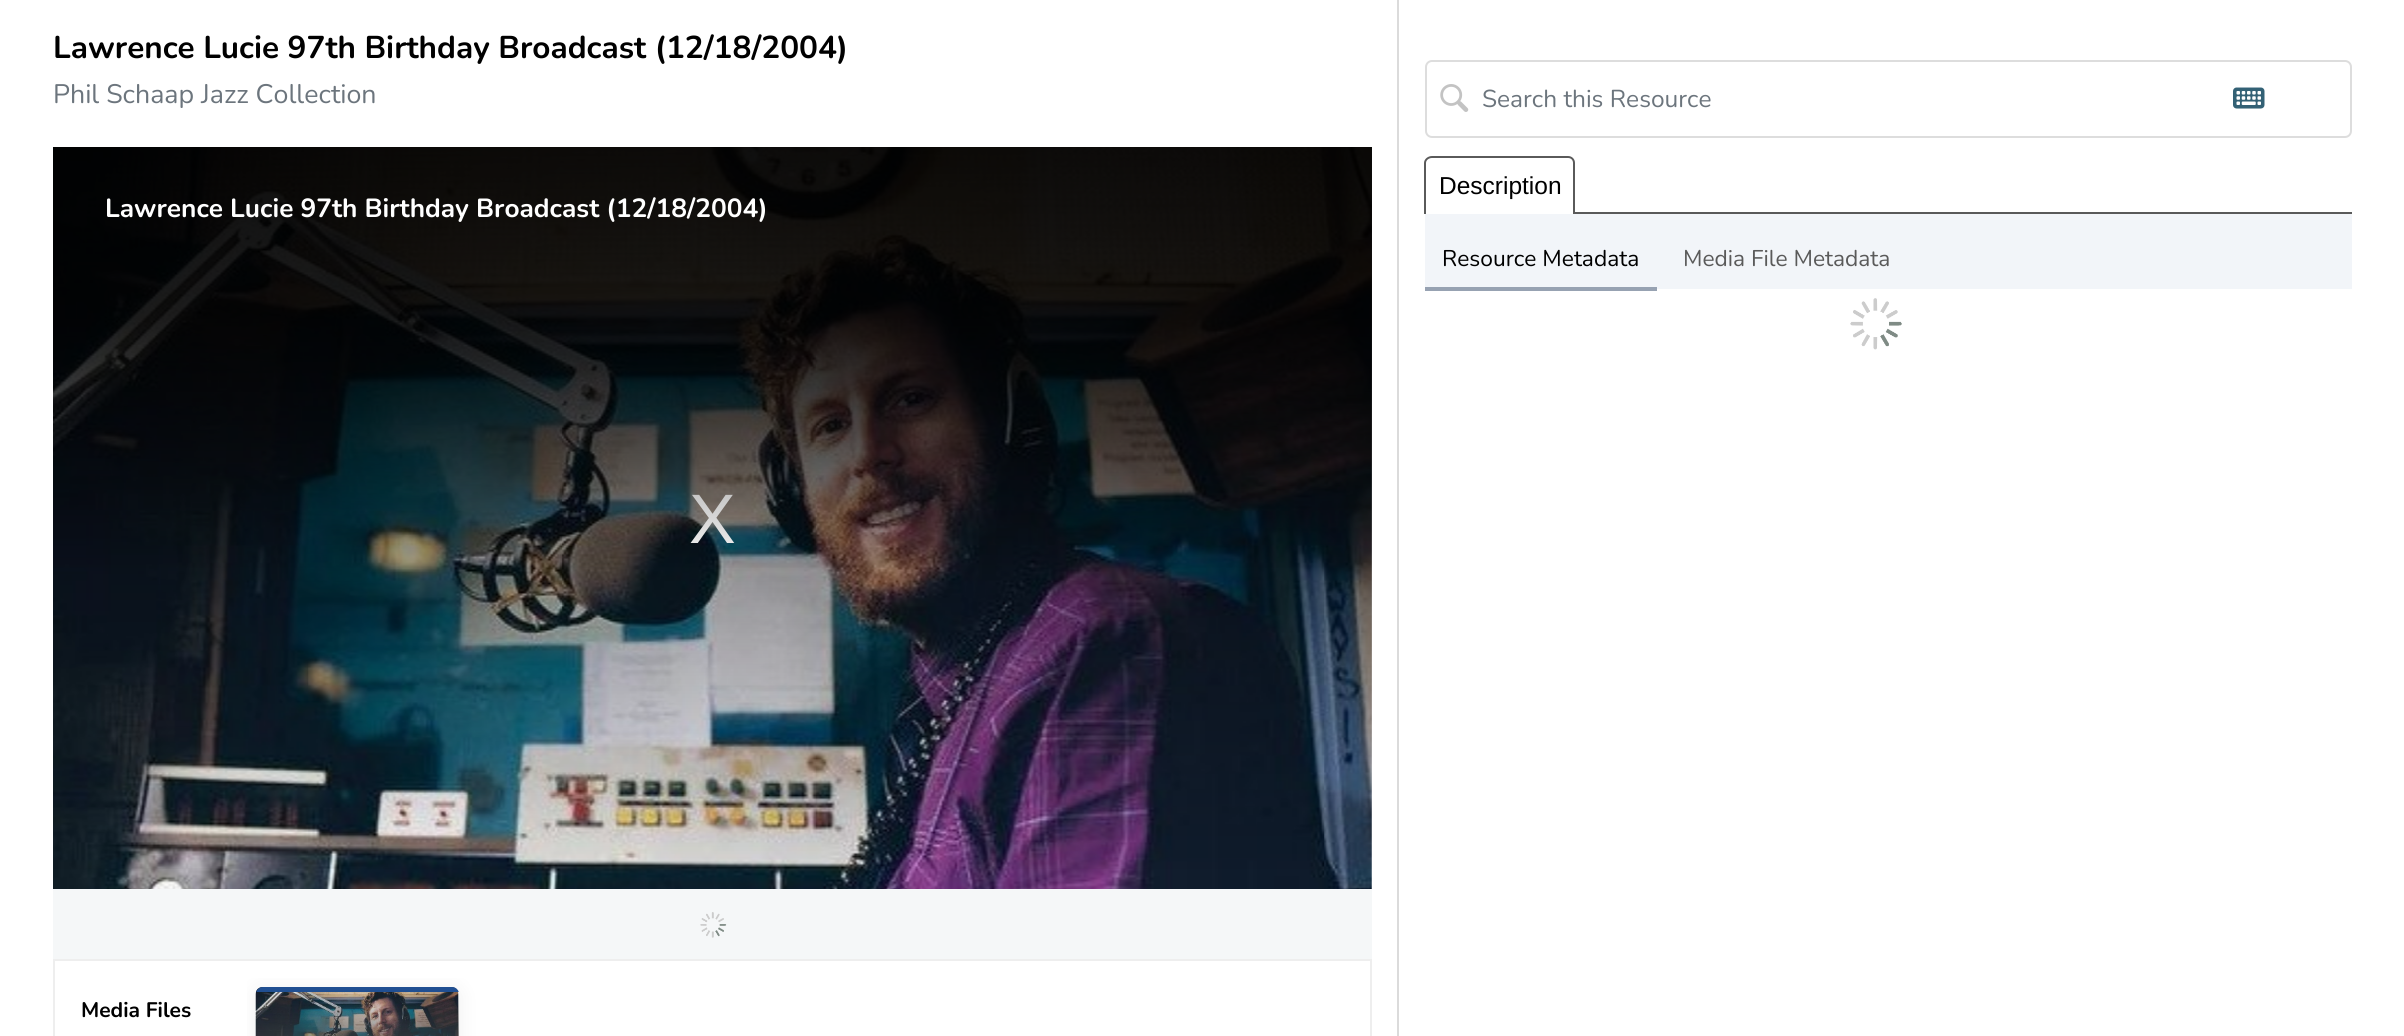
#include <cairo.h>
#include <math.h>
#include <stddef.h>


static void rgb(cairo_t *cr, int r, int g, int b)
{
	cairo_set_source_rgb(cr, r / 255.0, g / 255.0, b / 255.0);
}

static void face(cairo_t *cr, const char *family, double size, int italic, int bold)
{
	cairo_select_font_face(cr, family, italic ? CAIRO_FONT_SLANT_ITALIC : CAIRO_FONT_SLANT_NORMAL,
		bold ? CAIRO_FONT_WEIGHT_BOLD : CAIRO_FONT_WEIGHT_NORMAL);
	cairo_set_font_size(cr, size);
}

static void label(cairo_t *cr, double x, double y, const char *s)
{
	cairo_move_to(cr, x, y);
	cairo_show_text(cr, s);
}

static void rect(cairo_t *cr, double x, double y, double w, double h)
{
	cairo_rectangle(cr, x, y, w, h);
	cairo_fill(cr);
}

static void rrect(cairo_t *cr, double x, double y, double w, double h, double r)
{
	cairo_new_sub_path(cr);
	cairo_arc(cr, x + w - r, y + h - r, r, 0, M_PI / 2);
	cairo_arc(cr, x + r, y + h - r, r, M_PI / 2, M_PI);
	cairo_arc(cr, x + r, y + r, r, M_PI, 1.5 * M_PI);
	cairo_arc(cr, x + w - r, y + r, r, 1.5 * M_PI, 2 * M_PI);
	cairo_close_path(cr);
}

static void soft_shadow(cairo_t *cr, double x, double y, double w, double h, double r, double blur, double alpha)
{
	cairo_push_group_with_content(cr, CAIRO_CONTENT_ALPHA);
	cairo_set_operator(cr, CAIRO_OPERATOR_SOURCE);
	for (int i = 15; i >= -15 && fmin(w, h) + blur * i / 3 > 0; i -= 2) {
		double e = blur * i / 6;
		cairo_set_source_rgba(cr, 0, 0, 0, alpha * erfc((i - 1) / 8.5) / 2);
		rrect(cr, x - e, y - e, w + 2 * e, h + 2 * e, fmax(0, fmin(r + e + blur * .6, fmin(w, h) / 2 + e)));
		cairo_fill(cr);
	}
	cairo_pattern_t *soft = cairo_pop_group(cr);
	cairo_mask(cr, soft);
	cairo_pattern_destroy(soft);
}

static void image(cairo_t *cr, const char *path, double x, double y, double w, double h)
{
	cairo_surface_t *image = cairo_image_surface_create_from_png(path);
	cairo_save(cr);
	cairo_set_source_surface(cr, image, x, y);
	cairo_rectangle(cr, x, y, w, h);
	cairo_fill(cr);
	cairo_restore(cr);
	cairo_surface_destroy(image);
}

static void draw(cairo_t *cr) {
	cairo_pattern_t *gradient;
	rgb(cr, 255, 255, 255);
	cairo_paint(cr);
	face(cr, "Nunito", 31.5, 0, 1);
	rgb(cr, 0, 0, 0);
	label(cr, 53, 58, "Lawrence Lucie 97th Birthday Broadcast (12/18/2004)");
	face(cr, "Nunito", 26.75, 0, 0);
	rgb(cr, 108, 117, 125);
	label(cr, 53, 103, "Phil Schaap Jazz Collection");
	image(cr, "image0.png", 53, 147, 1319, 742);
	gradient = cairo_pattern_create_linear(712, 147, 712, 889);
	cairo_pattern_add_color_stop_rgba(gradient, 0, 0, 0, 0, 0.8);
	cairo_pattern_add_color_stop_rgba(gradient, 1, 0, 0, 0, 0);
	cairo_set_source(cr, gradient);
	cairo_pattern_destroy(gradient);
	rect(cr, 53, 147, 1319, 722);
	face(cr, "Liberation Sans", 70, 0, 0);
	rgb(cr, 255, 255, 255);
	label(cr, 689, 543, "X");
	gradient = cairo_pattern_create_linear(712, 576, 712, 147);
	cairo_pattern_add_color_stop_rgba(gradient, 0, 0, 0, 0, 0);
	cairo_pattern_add_color_stop_rgba(gradient, 0.6, 0, 0, 0, 0.7);
	cairo_set_source(cr, gradient);
	cairo_pattern_destroy(gradient);
	rect(cr, 53, 147, 1319, 421);
	face(cr, "Nunito", 26.25, 0, 1);
	rgb(cr, 255, 255, 255);
	label(cr, 105, 217, "Lawrence Lucie 97th Birthday Broadcast (12/18/2004)");
	rgb(cr, 245, 247, 248);
	rect(cr, 53, 889, 1319, 70);
	image(cr, "image1.png", 700, 912, 27, 26);
	cairo_rectangle(cr, 54, 960, 1317, 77);
	rgb(cr, 238, 238, 238);
	cairo_stroke(cr);
	face(cr, "Nunito", 21, 0, 1);
	rgb(cr, 0, 0, 0);
	label(cr, 81, 1017, "Media Files");
	cairo_save(cr);
	cairo_rectangle(cr, 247, 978, 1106, 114);
	cairo_clip(cr);
	rgb(cr, 238, 238, 238);
	soft_shadow(cr, 256, 989, 203, 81, 7, 9, 1);
	cairo_restore(cr);
	rgb(cr, 255, 255, 255);
	rrect(cr, 256, 987, 203, 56, 7);
	cairo_fill(cr);
	image(cr, "image2.png", 255, 987, 204, 49);
	gradient = cairo_pattern_create_linear(358, 987, 358, 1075);
	cairo_pattern_add_color_stop_rgba(gradient, 0, 0.267, 0.267, 0.267, 0);
	cairo_pattern_add_color_stop_rgba(gradient, 1, 0.267, 0.267, 0.267, 1);
	cairo_set_source(cr, gradient);
	cairo_pattern_destroy(gradient);
	rect(cr, 256, 990, 203, 46);
	cairo_save(cr);
	rrect(cr, 256, 987, 203, 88, 7);
	cairo_clip(cr);
	rgb(cr, 32, 79, 146);
	rect(cr, 256, 987, 203, 5);
	cairo_restore(cr);
	rgb(cr, 219, 219, 219);
	rect(cr, 1397, 0, 2, 1036);
	rrect(cr, 1426, 61, 925, 76, 6);
	rgb(cr, 221, 221, 221);
	cairo_stroke(cr);
	image(cr, "image3.png", 1440, 84, 29, 28);
	face(cr, "Nunito", 24.5, 0, 0);
	rgb(cr, 108, 117, 125);
	label(cr, 1482, 107, "Search this Resource");
	image(cr, "image4.png", 2233, 87, 32, 22);
	rgb(cr, 90, 90, 90);
	rect(cr, 1575, 212, 777, 2);
	cairo_set_fill_rule(cr, CAIRO_FILL_RULE_EVEN_ODD);
	cairo_new_path(cr);
	cairo_move_to(cr, 1432, 156);
	cairo_line_to(cr, 1568, 156);
	cairo_curve_to(cr, 1572, 156, 1575, 159, 1575, 163);
	cairo_line_to(cr, 1575, 214);
	cairo_line_to(cr, 1424, 214);
	cairo_line_to(cr, 1424, 163);
	cairo_curve_to(cr, 1424, 159, 1428, 156, 1432, 156);
	cairo_close_path(cr);
	cairo_move_to(cr, 1432, 158);
	cairo_line_to(cr, 1568, 158);
	cairo_curve_to(cr, 1571, 158, 1573, 160, 1573, 163);
	cairo_line_to(cr, 1573, 214);
	cairo_line_to(cr, 1426, 214);
	cairo_line_to(cr, 1426, 163);
	cairo_curve_to(cr, 1426, 160, 1429, 158, 1432, 158);
	cairo_close_path(cr);
	cairo_fill(cr);
	face(cr, "Liberation Sans", 24.5, 0, 0);
	rgb(cr, 0, 0, 0);
	label(cr, 1439, 194, "Description");
	rgb(cr, 242, 245, 249);
	rect(cr, 1425, 214, 927, 75);
	rgb(cr, 151, 162, 178);
	rect(cr, 1425, 287, 232, 4);
	face(cr, "Nunito", 22.75, 0, 0);
	rgb(cr, 0, 0, 0);
	label(cr, 1442, 266, "Resource Metadata");
	rgb(cr, 90, 90, 90);
	label(cr, 1683, 266, "Media File Metadata");
	image(cr, "image5.png", 1850, 298, 52, 52);
}

int main(void) {
	cairo_surface_t *surface = cairo_image_surface_create(CAIRO_FORMAT_RGB24, 2404, 1036);
	cairo_t *cr = cairo_create(surface);
	cairo_font_options_t *options = cairo_font_options_create();
	cairo_font_options_set_hint_metrics(options, CAIRO_HINT_METRICS_OFF);
	cairo_font_options_set_hint_style(options, CAIRO_HINT_STYLE_NONE);
	cairo_set_font_options(cr, options);
	cairo_set_miter_limit(cr, 4);
	draw(cr);
	cairo_surface_write_to_png(surface, "render.png");
	cairo_font_options_destroy(options);
	cairo_destroy(cr);
	cairo_surface_destroy(surface);
	return 0;
}
